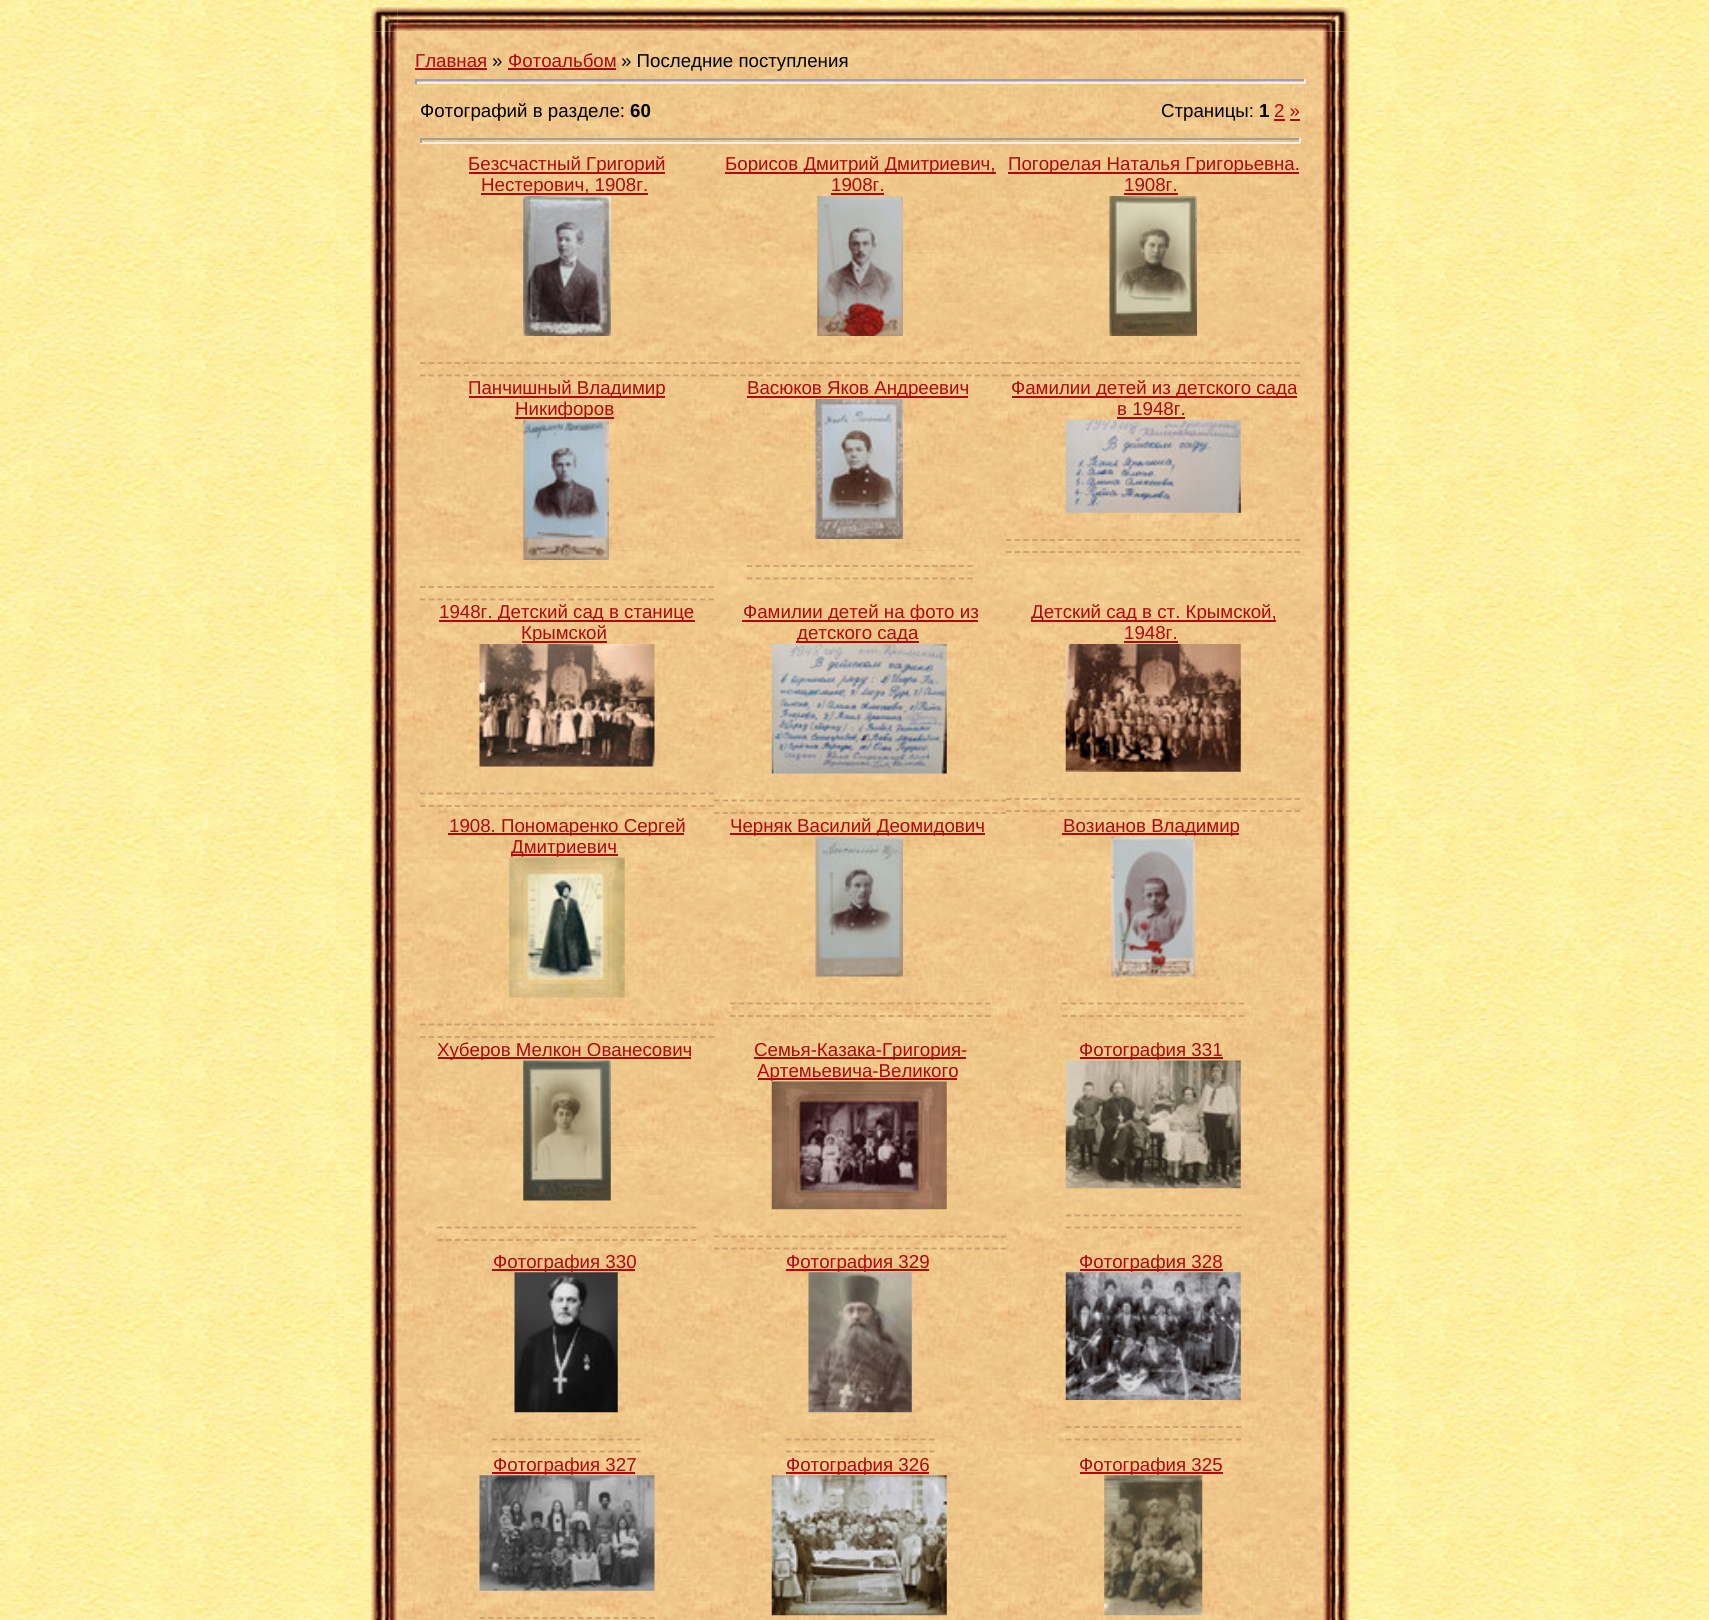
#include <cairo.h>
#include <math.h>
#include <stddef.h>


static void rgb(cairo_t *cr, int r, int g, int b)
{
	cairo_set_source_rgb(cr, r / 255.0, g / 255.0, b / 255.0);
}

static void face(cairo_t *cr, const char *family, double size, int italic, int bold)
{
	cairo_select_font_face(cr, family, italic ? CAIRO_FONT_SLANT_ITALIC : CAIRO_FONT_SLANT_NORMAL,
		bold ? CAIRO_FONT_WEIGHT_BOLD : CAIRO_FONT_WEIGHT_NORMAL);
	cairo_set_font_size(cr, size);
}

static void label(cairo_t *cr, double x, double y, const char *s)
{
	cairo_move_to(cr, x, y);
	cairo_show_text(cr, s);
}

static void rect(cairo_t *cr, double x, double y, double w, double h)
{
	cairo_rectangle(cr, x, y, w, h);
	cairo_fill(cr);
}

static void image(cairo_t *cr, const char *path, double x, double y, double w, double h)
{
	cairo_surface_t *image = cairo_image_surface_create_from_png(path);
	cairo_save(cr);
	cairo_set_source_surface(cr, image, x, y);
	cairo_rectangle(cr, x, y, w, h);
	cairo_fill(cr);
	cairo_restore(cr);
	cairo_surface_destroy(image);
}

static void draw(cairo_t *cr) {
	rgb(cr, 255, 255, 255);
	cairo_paint(cr);
	image(cr, "image0.png", 0, 0, 1709, 1620);
	image(cr, "image2.png", 397, 0, 926, 32);
	image(cr, "image4.png", 369, 31, 29, 1589);
	image(cr, "image5.png", 397, 31, 926, 1589);
	image(cr, "image1.png", 369, 0, 29, 32);
	image(cr, "image27.png", 1323, 31, 28, 1589);
	image(cr, "image3.png", 1323, 0, 28, 32);
	face(cr, "Liberation Sans", 18.7, 0, 0);
	rgb(cr, 173, 9, 14);
	label(cr, 415, 67, "Главная");
	rect(cr, 415, 68, 72, 2);
	rgb(cr, 0, 0, 0);
	label(cr, 492, 67, "»");
	rgb(cr, 173, 9, 14);
	label(cr, 508, 67, "Фотоальбом");
	rect(cr, 508, 68, 108, 2);
	rgb(cr, 0, 0, 0);
	label(cr, 621, 67, "» Последние поступления");
	rgb(cr, 159, 159, 159);
	rect(cr, 415, 79, 891, 2);
	rgb(cr, 238, 238, 238);
	rect(cr, 1304, 79, 2, 5);
	rect(cr, 415, 82, 891, 2);
	rgb(cr, 159, 159, 159);
	rect(cr, 415, 79, 2, 5);
	rgb(cr, 0, 0, 0);
	label(cr, 420, 117, "Фотографий в разделе:");
	face(cr, "Liberation Sans", 18.7, 0, 1);
	label(cr, 630, 117, "60");
	face(cr, "Liberation Sans", 18.7, 0, 0);
	label(cr, 1161, 117, "Страницы:");
	face(cr, "Liberation Sans", 18.7, 0, 1);
	label(cr, 1259, 117, "1");
	face(cr, "Liberation Sans", 18.7, 0, 0);
	rgb(cr, 173, 9, 14);
	label(cr, 1274, 117, "2 »");
	rect(cr, 1274, 119, 11, 2);
	rect(cr, 1290, 119, 10, 2);
	rgb(cr, 159, 159, 159);
	rect(cr, 420, 138, 880, 2);
	rgb(cr, 238, 238, 238);
	rect(cr, 1299, 138, 2, 5);
	rect(cr, 420, 142, 880, 2);
	rgb(cr, 159, 159, 159);
	rect(cr, 420, 138, 2, 5);
	rgb(cr, 173, 9, 14);
	rect(cr, 469, 172, 196, 2);
	label(cr, 468, 170, "Безсчастный Григорий");
	rect(cr, 481, 193, 167, 2);
	label(cr, 481, 191, "Нестерович, 1908г.");
	image(cr, "image6.png", 523, 196, 88, 140);
	cairo_new_path(cr);
	cairo_move_to(cr, 420, 363);
	cairo_line_to(cr, 714, 363);
	rgb(cr, 202, 156, 107);
	cairo_set_line_width(cr, 1.8);
	cairo_set_dash(cr, (double[]){5.25, 3.5}, 2, 0);
	cairo_stroke(cr);
	cairo_new_path(cr);
	cairo_move_to(cr, 420, 375.5);
	cairo_line_to(cr, 714, 375.5);
	cairo_stroke(cr);
	rgb(cr, 173, 9, 14);
	rect(cr, 725, 172, 271, 2);
	label(cr, 725, 170, "Борисов Дмитрий Дмитриевич,");
	label(cr, 831, 191, "1908г.");
	rect(cr, 831, 193, 53, 2);
	image(cr, "image7.png", 817, 196, 86, 140);
	cairo_new_path(cr);
	cairo_move_to(cr, 714, 363);
	cairo_line_to(cr, 1006, 363);
	rgb(cr, 202, 156, 107);
	cairo_set_dash(cr, (double[]){5.25, 3.45}, 2, 0);
	cairo_stroke(cr);
	cairo_new_path(cr);
	cairo_move_to(cr, 714, 375.5);
	cairo_line_to(cr, 1006, 375.5);
	cairo_stroke(cr);
	rgb(cr, 173, 9, 14);
	rect(cr, 1008, 172, 291, 2);
	label(cr, 1008, 170, "Погорелая Наталья Григорьевна.");
	label(cr, 1124, 191, "1908г.");
	rect(cr, 1124, 193, 54, 2);
	image(cr, "image8.png", 1109, 196, 88, 140);
	cairo_new_path(cr);
	cairo_move_to(cr, 1006, 363);
	cairo_line_to(cr, 1300, 363);
	rgb(cr, 202, 156, 107);
	cairo_set_dash(cr, (double[]){5.25, 3.5}, 2, 0);
	cairo_stroke(cr);
	cairo_new_path(cr);
	cairo_move_to(cr, 1006, 375.5);
	cairo_line_to(cr, 1300, 375.5);
	cairo_stroke(cr);
	rgb(cr, 173, 9, 14);
	rect(cr, 469, 396, 196, 2);
	label(cr, 468, 394, "Панчишный Владимир");
	rect(cr, 515, 417, 99, 2);
	label(cr, 515, 415, "Никифоров");
	image(cr, "image9.png", 523, 420, 86, 140);
	cairo_new_path(cr);
	cairo_move_to(cr, 420, 587);
	cairo_line_to(cr, 714, 587);
	rgb(cr, 202, 156, 107);
	cairo_stroke(cr);
	cairo_new_path(cr);
	cairo_move_to(cr, 420, 599.5);
	cairo_line_to(cr, 714, 599.5);
	cairo_stroke(cr);
	rgb(cr, 173, 9, 14);
	rect(cr, 747, 396, 221, 2);
	label(cr, 747, 394, "Васюков Яков Андреевич");
	image(cr, "image10.png", 815, 399, 88, 140);
	cairo_new_path(cr);
	cairo_move_to(cr, 747, 566);
	cairo_line_to(cr, 973, 566);
	rgb(cr, 202, 156, 107);
	cairo_set_dash(cr, (double[]){5.25, 3.57}, 2, 0);
	cairo_stroke(cr);
	cairo_new_path(cr);
	cairo_move_to(cr, 747, 578.5);
	cairo_line_to(cr, 973, 578.5);
	cairo_stroke(cr);
	rgb(cr, 173, 9, 14);
	rect(cr, 1012, 396, 285, 2);
	label(cr, 1011, 394, "Фамилии детей из детского сада");
	label(cr, 1117, 415, "в 1948г.");
	rect(cr, 1117, 417, 68, 2);
	image(cr, "image11.png", 1065, 420, 176, 93);
	cairo_new_path(cr);
	cairo_move_to(cr, 1006, 540);
	cairo_line_to(cr, 1300, 540);
	rgb(cr, 202, 156, 107);
	cairo_set_dash(cr, (double[]){5.25, 3.5}, 2, 0);
	cairo_stroke(cr);
	cairo_new_path(cr);
	cairo_move_to(cr, 1006, 552);
	cairo_line_to(cr, 1300, 552);
	cairo_stroke(cr);
	rgb(cr, 173, 9, 14);
	rect(cr, 439, 620, 256, 2);
	label(cr, 439, 618, "1948г. Детский сад в станице");
	rect(cr, 522, 641, 85, 2);
	label(cr, 521, 639, "Крымской");
	image(cr, "image12.png", 479, 644, 176, 123);
	cairo_new_path(cr);
	cairo_move_to(cr, 420, 793.5);
	cairo_line_to(cr, 714, 793.5);
	rgb(cr, 202, 156, 107);
	cairo_stroke(cr);
	cairo_new_path(cr);
	cairo_move_to(cr, 420, 806);
	cairo_line_to(cr, 714, 806);
	cairo_stroke(cr);
	rgb(cr, 173, 9, 14);
	rect(cr, 742, 620, 236, 2);
	label(cr, 743, 618, "Фамилии детей на фото из");
	rect(cr, 796, 641, 123, 2);
	label(cr, 797, 639, "детского сада");
	image(cr, "image13.png", 771, 644, 176, 130);
	cairo_new_path(cr);
	cairo_move_to(cr, 714, 800.5);
	cairo_line_to(cr, 1006, 800.5);
	rgb(cr, 202, 156, 107);
	cairo_set_dash(cr, (double[]){5.25, 3.45}, 2, 0);
	cairo_stroke(cr);
	cairo_new_path(cr);
	cairo_move_to(cr, 714, 813);
	cairo_line_to(cr, 1006, 813);
	cairo_stroke(cr);
	rgb(cr, 173, 9, 14);
	rect(cr, 1031, 620, 245, 2);
	label(cr, 1031, 618, "Детский сад в ст. Крымской,");
	label(cr, 1124, 639, "1948г.");
	rect(cr, 1124, 641, 54, 2);
	image(cr, "image14.png", 1065, 644, 176, 128);
	cairo_new_path(cr);
	cairo_move_to(cr, 1006, 799);
	cairo_line_to(cr, 1300, 799);
	rgb(cr, 202, 156, 107);
	cairo_set_dash(cr, (double[]){5.25, 3.5}, 2, 0);
	cairo_stroke(cr);
	cairo_new_path(cr);
	cairo_move_to(cr, 1006, 811);
	cairo_line_to(cr, 1300, 811);
	cairo_stroke(cr);
	rgb(cr, 173, 9, 14);
	rect(cr, 448, 833, 236, 2);
	label(cr, 449, 832, "1908. Пономаренко Сергей");
	rect(cr, 511, 854, 107, 2);
	label(cr, 511, 853, "Дмитриевич");
	image(cr, "image15.png", 509, 857, 116, 141);
	cairo_new_path(cr);
	cairo_move_to(cr, 420, 1024.5);
	cairo_line_to(cr, 714, 1024.5);
	rgb(cr, 202, 156, 107);
	cairo_stroke(cr);
	cairo_new_path(cr);
	cairo_move_to(cr, 420, 1037);
	cairo_line_to(cr, 714, 1037);
	cairo_stroke(cr);
	rgb(cr, 173, 9, 14);
	rect(cr, 730, 833, 255, 2);
	label(cr, 730, 832, "Черняк Василий Деомидович");
	image(cr, "image16.png", 815, 836, 88, 141);
	cairo_new_path(cr);
	cairo_move_to(cr, 730, 1003.5);
	cairo_line_to(cr, 990.5, 1003.5);
	rgb(cr, 202, 156, 107);
	cairo_set_dash(cr, (double[]){5.25, 3.55}, 2, 0);
	cairo_stroke(cr);
	cairo_new_path(cr);
	cairo_move_to(cr, 730, 1016);
	cairo_line_to(cr, 990.5, 1016);
	cairo_stroke(cr);
	rgb(cr, 173, 9, 14);
	rect(cr, 1062, 833, 177, 2);
	label(cr, 1063, 832, "Возианов Владимир");
	image(cr, "image17.png", 1111, 836, 85, 141);
	cairo_new_path(cr);
	cairo_move_to(cr, 1062, 1003.5);
	cairo_line_to(cr, 1244, 1003.5);
	rgb(cr, 202, 156, 107);
	cairo_set_dash(cr, (double[]){5.25, 3.59}, 2, 0);
	cairo_stroke(cr);
	cairo_new_path(cr);
	cairo_move_to(cr, 1062, 1016);
	cairo_line_to(cr, 1244, 1016);
	cairo_stroke(cr);
	rgb(cr, 173, 9, 14);
	rect(cr, 438, 1057, 253, 2);
	label(cr, 437, 1056, "Хуберов Мелкон Ованесович");
	image(cr, "image18.png", 523, 1060, 88, 141);
	cairo_new_path(cr);
	cairo_move_to(cr, 437.5, 1227.5);
	cairo_line_to(cr, 696.5, 1227.5);
	rgb(cr, 202, 156, 107);
	cairo_set_dash(cr, (double[]){5.25, 3.5}, 2, 0);
	cairo_stroke(cr);
	cairo_new_path(cr);
	cairo_move_to(cr, 437.5, 1240);
	cairo_line_to(cr, 696.5, 1240);
	cairo_stroke(cr);
	rgb(cr, 173, 9, 14);
	rect(cr, 754, 1057, 212, 2);
	label(cr, 754, 1056, "Семья-Казака-Григория-");
	rect(cr, 758, 1078, 199, 2);
	label(cr, 757, 1077, "Артемьевича-Великого");
	image(cr, "image19.png", 771, 1081, 176, 129);
	cairo_new_path(cr);
	cairo_move_to(cr, 714, 1236.5);
	cairo_line_to(cr, 1006, 1236.5);
	rgb(cr, 202, 156, 107);
	cairo_set_dash(cr, (double[]){5.25, 3.45}, 2, 0);
	cairo_stroke(cr);
	cairo_new_path(cr);
	cairo_move_to(cr, 714, 1248.5);
	cairo_line_to(cr, 1006, 1248.5);
	cairo_stroke(cr);
	rgb(cr, 173, 9, 14);
	rect(cr, 1080, 1057, 143, 2);
	label(cr, 1079, 1056, "Фотография 331");
	image(cr, "image20.png", 1065, 1060, 176, 129);
	cairo_new_path(cr);
	cairo_move_to(cr, 1066, 1215.5);
	cairo_line_to(cr, 1241, 1215.5);
	rgb(cr, 202, 156, 107);
	cairo_set_dash(cr, (double[]){5.25, 3.69}, 2, 0);
	cairo_stroke(cr);
	cairo_new_path(cr);
	cairo_move_to(cr, 1066, 1227.5);
	cairo_line_to(cr, 1241, 1227.5);
	cairo_stroke(cr);
	rgb(cr, 173, 9, 14);
	rect(cr, 492, 1269, 143, 2);
	label(cr, 493, 1268, "Фотография 330");
	image(cr, "image21.png", 514, 1272, 104, 141);
	cairo_new_path(cr);
	cairo_move_to(cr, 492, 1439.5);
	cairo_line_to(cr, 640.5, 1439.5);
	rgb(cr, 202, 156, 107);
	cairo_set_dash(cr, (double[]){5.25, 3.71}, 2, 0);
	cairo_stroke(cr);
	cairo_new_path(cr);
	cairo_move_to(cr, 492, 1451.5);
	cairo_line_to(cr, 640.5, 1451.5);
	cairo_stroke(cr);
	rgb(cr, 173, 9, 14);
	rect(cr, 786, 1269, 143, 2);
	label(cr, 786, 1268, "Фотография 329");
	image(cr, "image22.png", 808, 1272, 104, 141);
	cairo_new_path(cr);
	cairo_move_to(cr, 786, 1439.5);
	cairo_line_to(cr, 934.5, 1439.5);
	rgb(cr, 202, 156, 107);
	cairo_stroke(cr);
	cairo_new_path(cr);
	cairo_move_to(cr, 786, 1451.5);
	cairo_line_to(cr, 934.5, 1451.5);
	cairo_stroke(cr);
	rgb(cr, 173, 9, 14);
	rect(cr, 1080, 1269, 143, 2);
	label(cr, 1079, 1268, "Фотография 328");
	image(cr, "image23.png", 1065, 1272, 176, 128);
	cairo_new_path(cr);
	cairo_move_to(cr, 1066, 1427);
	cairo_line_to(cr, 1241, 1427);
	rgb(cr, 202, 156, 107);
	cairo_set_dash(cr, (double[]){5.25, 3.69}, 2, 0);
	cairo_stroke(cr);
	cairo_new_path(cr);
	cairo_move_to(cr, 1066, 1439.5);
	cairo_line_to(cr, 1241, 1439.5);
	cairo_stroke(cr);
	rgb(cr, 173, 9, 14);
	rect(cr, 492, 1472, 143, 2);
	label(cr, 493, 1471, "Фотография 327");
	image(cr, "image24.png", 479, 1475, 176, 116);
	cairo_new_path(cr);
	cairo_move_to(cr, 479.5, 1618);
	cairo_line_to(cr, 654.5, 1618);
	rgb(cr, 202, 156, 107);
	cairo_stroke(cr);
	rgb(cr, 173, 9, 14);
	rect(cr, 786, 1472, 143, 2);
	label(cr, 786, 1471, "Фотография 326");
	image(cr, "image25.png", 771, 1475, 176, 141);
	rect(cr, 1080, 1472, 143, 2);
	label(cr, 1079, 1471, "Фотография 325");
	image(cr, "image26.png", 1104, 1475, 99, 141);
}

int main(void) {
	cairo_surface_t *surface = cairo_image_surface_create(CAIRO_FORMAT_RGB24, 1709, 1620);
	cairo_t *cr = cairo_create(surface);
	cairo_font_options_t *options = cairo_font_options_create();
	cairo_font_options_set_hint_metrics(options, CAIRO_HINT_METRICS_OFF);
	cairo_font_options_set_hint_style(options, CAIRO_HINT_STYLE_NONE);
	cairo_set_font_options(cr, options);
	cairo_set_miter_limit(cr, 4);
	draw(cr);
	cairo_surface_write_to_png(surface, "render.png");
	cairo_font_options_destroy(options);
	cairo_destroy(cr);
	cairo_surface_destroy(surface);
	return 0;
}
